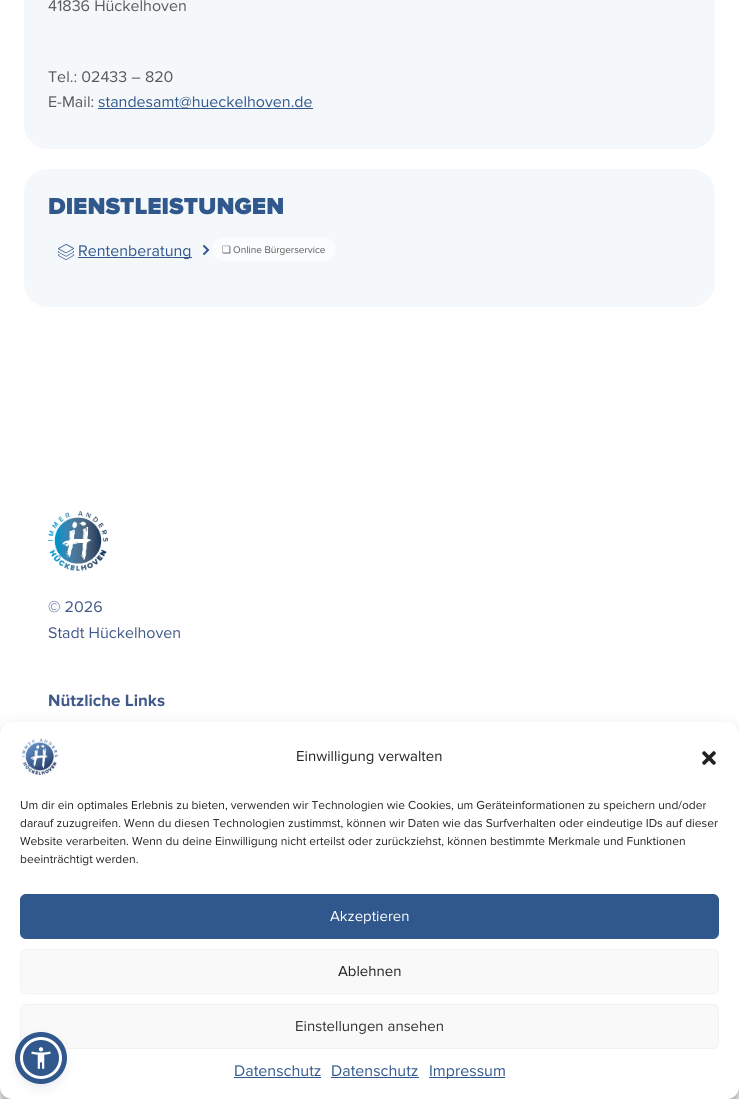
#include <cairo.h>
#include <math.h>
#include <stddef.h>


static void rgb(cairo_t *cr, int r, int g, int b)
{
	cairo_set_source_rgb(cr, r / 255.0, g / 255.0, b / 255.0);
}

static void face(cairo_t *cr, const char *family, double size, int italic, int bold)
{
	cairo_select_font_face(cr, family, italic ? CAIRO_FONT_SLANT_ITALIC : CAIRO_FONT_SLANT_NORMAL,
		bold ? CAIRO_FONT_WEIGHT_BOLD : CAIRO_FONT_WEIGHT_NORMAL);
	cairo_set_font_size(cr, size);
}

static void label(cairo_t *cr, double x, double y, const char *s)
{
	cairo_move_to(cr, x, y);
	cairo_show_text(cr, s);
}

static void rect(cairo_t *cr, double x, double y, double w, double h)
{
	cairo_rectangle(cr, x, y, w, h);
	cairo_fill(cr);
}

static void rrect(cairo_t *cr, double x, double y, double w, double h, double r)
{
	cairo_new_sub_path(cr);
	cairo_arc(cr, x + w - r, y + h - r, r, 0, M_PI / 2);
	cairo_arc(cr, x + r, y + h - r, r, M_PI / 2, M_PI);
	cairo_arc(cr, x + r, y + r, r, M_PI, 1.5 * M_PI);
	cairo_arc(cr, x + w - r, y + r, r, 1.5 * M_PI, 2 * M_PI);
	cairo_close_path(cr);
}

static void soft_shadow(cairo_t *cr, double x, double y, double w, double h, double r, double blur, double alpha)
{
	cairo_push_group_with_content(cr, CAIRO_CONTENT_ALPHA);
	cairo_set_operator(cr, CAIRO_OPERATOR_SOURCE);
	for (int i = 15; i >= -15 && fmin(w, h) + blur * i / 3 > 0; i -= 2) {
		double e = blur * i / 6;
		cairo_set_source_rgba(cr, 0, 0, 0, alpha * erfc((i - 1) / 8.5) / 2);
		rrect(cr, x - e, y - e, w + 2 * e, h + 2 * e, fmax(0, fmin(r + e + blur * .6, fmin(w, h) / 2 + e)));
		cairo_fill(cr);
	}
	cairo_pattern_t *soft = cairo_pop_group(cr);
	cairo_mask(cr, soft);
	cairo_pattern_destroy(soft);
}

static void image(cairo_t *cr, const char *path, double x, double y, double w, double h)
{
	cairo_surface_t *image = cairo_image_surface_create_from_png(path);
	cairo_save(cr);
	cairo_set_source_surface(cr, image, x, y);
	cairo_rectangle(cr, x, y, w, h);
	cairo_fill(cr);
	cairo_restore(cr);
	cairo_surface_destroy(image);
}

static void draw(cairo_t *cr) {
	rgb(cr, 255, 255, 255);
	cairo_paint(cr);
	rgb(cr, 245, 248, 251);
	rrect(cr, 24, -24, 691, 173, 24);
	cairo_fill(cr);
	face(cr, "Proxima Nova", 16, 0, 0);
	rgb(cr, 89, 89, 89);
	label(cr, 48, 11, "41836 Hückelhoven");
	label(cr, 48, 82, "Tel.: 02433 – 820");
	label(cr, 48, 107, "E-Mail:");
	rgb(cr, 48, 88, 140);
	rect(cr, 98, 108, 215, 1);
	label(cr, 98, 107, "standesamt@hueckelhoven.de");
	rgb(cr, 245, 248, 250);
	rrect(cr, 24, 169, 691, 138, 24);
	cairo_fill(cr);
	face(cr, "Proxima Nova Black", 24, 0, 0);
	rgb(cr, 48, 88, 140);
	label(cr, 48, 214, "DIENSTLEISTUNGEN");
	image(cr, "image0.png", 58, 244, 16, 16);
	rect(cr, 78, 257, 114, 1);
	face(cr, "Proxima Nova", 16, 0, 0);
	label(cr, 78, 256, "Rentenberatung");
	cairo_new_path(cr);
	cairo_move_to(cr, 204, 246);
	cairo_line_to(cr, 208, 250);
	cairo_line_to(cr, 204, 254);
	cairo_set_line_cap(cr, CAIRO_LINE_CAP_ROUND);
	cairo_stroke(cr);
	rgb(cr, 250, 252, 253);
	rrect(cr, 212, 238, 124, 23, 11.5);
	cairo_fill(cr);
	face(cr, "DejaVu Sans", 10, 0, 0);
	rgb(cr, 89, 89, 89);
	label(cr, 222, 253, "❏");
	face(cr, "Proxima Nova", 10, 0, 0);
	label(cr, 233, 253, "Online Bürgerservice");
	image(cr, "image1.png", 48, 511, 60, 60);
	face(cr, "Proxima Nova", 16, 0, 0);
	rgb(cr, 65, 89, 137);
	label(cr, 48, 612, "© 2026");
	label(cr, 48, 638, "Stadt Hückelhoven");
	face(cr, "Proxima Nova", 17, 0, 1);
	label(cr, 48, 706, "Nützliche Links");
	rgb(cr, 0, 0, 0);
	soft_shadow(cr, 0, 728, 739, 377, 12, 3, 0.23);
	soft_shadow(cr, 0, 732, 739, 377, 12, 10, 0.19);
	rgb(cr, 255, 255, 255);
	rrect(cr, 0, 722, 739, 377, 12);
	cairo_fill(cr);
	image(cr, "image2.png", 22, 738, 36, 38);
	face(cr, "Proxima Nova", 15, 0, 0);
	rgb(cr, 34, 34, 34);
	label(cr, 296, 761, "Einwilligung verwalten");
	image(cr, "image3.png", 702, 751, 14, 14);
	face(cr, "Proxima Nova", 12, 0, 0);
	label(cr, 20, 809, "Um dir ein optimales Erlebnis zu bieten, verwenden wir Technologien wie Cookies, um Geräteinformationen zu speichern und/oder");
	label(cr, 20, 827, "darauf zuzugreifen. Wenn du diesen Technologien zustimmst, können wir Daten wie das Surfverhalten oder eindeutige IDs auf dieser");
	label(cr, 20, 845, "Website verarbeiten. Wenn du deine Einwilligung nicht erteilst oder zurückziehst, können bestimmte Merkmale und Funktionen");
	label(cr, 20, 863, "beeinträchtigt werden.");
	rgb(cr, 48, 88, 140);
	rrect(cr, 20.5, 894.5, 698, 44, 5.5);
	cairo_fill_preserve(cr);
	cairo_set_line_width(cr, 1);
	cairo_set_line_cap(cr, CAIRO_LINE_CAP_BUTT);
	cairo_stroke(cr);
	face(cr, "Proxima Nova", 15, 0, 0);
	rgb(cr, 255, 255, 255);
	label(cr, 330, 921, "Akzeptieren");
	rgb(cr, 249, 249, 249);
	rrect(cr, 20.5, 949.5, 698, 44, 5.5);
	cairo_fill_preserve(cr);
	rgb(cr, 242, 242, 242);
	cairo_stroke(cr);
	rgb(cr, 34, 34, 34);
	label(cr, 338, 976, "Ablehnen");
	rgb(cr, 249, 249, 249);
	rrect(cr, 20.5, 1004.5, 698, 44, 5.5);
	cairo_fill_preserve(cr);
	rgb(cr, 242, 242, 242);
	cairo_stroke(cr);
	rgb(cr, 51, 51, 51);
	label(cr, 295, 1031, "Einstellungen ansehen");
	face(cr, "Proxima Nova", 16, 0, 0);
	rgb(cr, 48, 88, 140);
	label(cr, 234, 1076, "Datenschutz");
	rect(cr, 234, 1077, 87, 1);
	label(cr, 331, 1076, "Datenschutz");
	rect(cr, 331, 1077, 88, 1);
	rect(cr, 429, 1077, 76, 1);
	label(cr, 429, 1076, "Impressum");
	rgb(cr, 93, 100, 148);
	soft_shadow(cr, 20, 1039, 42, 42, 21, 2, 0.2);
	rgb(cr, 37, 44, 97);
	soft_shadow(cr, 20, 1042, 42, 42, 21, 7.5, 0.15);
	rgb(cr, 48, 88, 140);
	cairo_arc(cr, 41, 1058, 19.5, 0, 2 * M_PI);
	cairo_fill_preserve(cr);
	rgb(cr, 255, 255, 255);
	cairo_set_line_width(cr, 3);
	cairo_stroke(cr);
	cairo_arc(cr, 41, 1058, 23.5, 0, 2 * M_PI);
	rgb(cr, 48, 88, 140);
	cairo_set_line_width(cr, 5);
	cairo_stroke(cr);
	image(cr, "image4.png", 31, 1047, 20, 22);
}

int main(void) {
	cairo_surface_t *surface = cairo_image_surface_create(CAIRO_FORMAT_RGB24, 739, 1099);
	cairo_t *cr = cairo_create(surface);
	cairo_font_options_t *options = cairo_font_options_create();
	cairo_font_options_set_hint_metrics(options, CAIRO_HINT_METRICS_OFF);
	cairo_font_options_set_hint_style(options, CAIRO_HINT_STYLE_NONE);
	cairo_set_font_options(cr, options);
	cairo_set_miter_limit(cr, 4);
	draw(cr);
	cairo_surface_write_to_png(surface, "render.png");
	cairo_font_options_destroy(options);
	cairo_destroy(cr);
	cairo_surface_destroy(surface);
	return 0;
}
